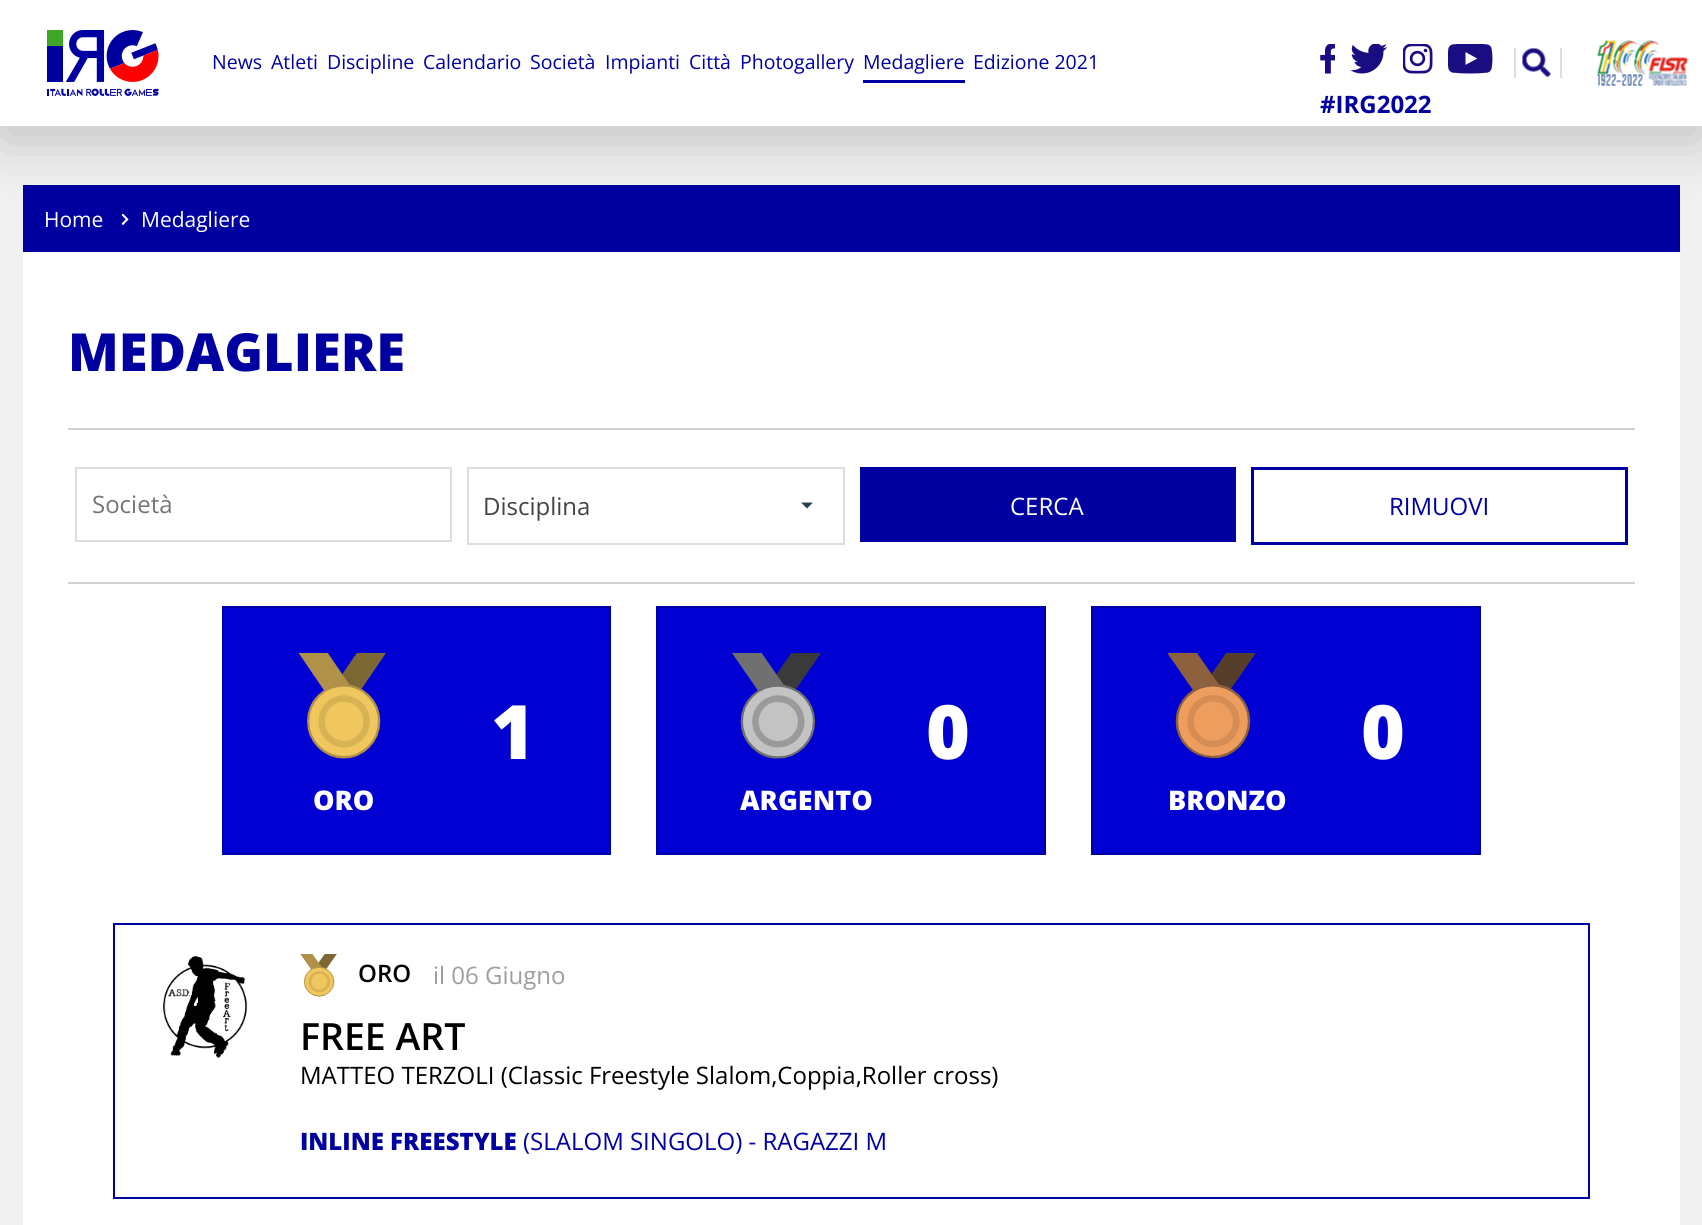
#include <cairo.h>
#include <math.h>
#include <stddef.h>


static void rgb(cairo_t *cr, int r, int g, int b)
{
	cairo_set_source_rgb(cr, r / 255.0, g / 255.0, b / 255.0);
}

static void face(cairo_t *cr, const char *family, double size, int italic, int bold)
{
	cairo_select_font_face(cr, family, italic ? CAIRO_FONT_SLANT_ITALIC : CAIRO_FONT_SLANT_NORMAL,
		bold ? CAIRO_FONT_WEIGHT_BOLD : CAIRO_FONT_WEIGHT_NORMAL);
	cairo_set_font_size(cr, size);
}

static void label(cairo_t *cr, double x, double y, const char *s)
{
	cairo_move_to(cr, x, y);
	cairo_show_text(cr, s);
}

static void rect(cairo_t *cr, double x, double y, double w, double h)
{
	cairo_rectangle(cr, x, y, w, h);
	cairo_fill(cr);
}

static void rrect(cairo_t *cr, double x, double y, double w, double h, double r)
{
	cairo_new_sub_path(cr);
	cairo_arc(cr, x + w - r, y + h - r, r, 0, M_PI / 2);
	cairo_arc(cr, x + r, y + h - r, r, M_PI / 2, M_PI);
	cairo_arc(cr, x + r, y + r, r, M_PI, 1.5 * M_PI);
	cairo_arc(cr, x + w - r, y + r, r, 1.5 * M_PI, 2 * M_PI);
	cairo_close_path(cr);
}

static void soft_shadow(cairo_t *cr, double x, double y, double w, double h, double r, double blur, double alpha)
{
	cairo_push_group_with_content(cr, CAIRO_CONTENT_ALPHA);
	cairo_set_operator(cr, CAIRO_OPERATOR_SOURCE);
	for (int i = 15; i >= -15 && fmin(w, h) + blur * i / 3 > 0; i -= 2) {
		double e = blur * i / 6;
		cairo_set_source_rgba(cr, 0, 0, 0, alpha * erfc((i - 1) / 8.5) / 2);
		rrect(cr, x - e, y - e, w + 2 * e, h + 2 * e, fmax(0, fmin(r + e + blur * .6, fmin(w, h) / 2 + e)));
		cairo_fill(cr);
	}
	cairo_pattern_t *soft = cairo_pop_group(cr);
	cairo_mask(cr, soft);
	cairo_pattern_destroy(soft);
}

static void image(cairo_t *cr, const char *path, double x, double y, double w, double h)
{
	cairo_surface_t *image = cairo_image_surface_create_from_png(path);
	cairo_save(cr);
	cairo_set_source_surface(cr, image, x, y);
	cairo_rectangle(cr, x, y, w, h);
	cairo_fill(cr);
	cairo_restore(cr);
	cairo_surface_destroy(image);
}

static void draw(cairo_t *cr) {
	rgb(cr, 241, 241, 241);
	cairo_paint(cr);
	rgb(cr, 0, 0, 160);
	rect(cr, 23, 185, 1657, 67);
	image(cr, "image7.png", 121, 213, 8, 12);
	rgb(cr, 0, 0, 0);
	soft_shadow(cr, 0, 15, 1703, 126, 0, 30, 0.2);
	rgb(cr, 255, 255, 255);
	rect(cr, 0, 0, 1702, 126);
	image(cr, "image0.png", 47, 30, 112, 66);
	face(cr, "Open Sans", 19.5, 0, 0);
	rgb(cr, 0, 0, 160);
	label(cr, 212, 69, "News");
	label(cr, 271, 69, "Atleti");
	label(cr, 327, 69, "Discipline");
	label(cr, 423, 69, "Calendario");
	label(cr, 530, 69, "Società");
	label(cr, 605, 69, "Impianti");
	label(cr, 689, 69, "Città");
	label(cr, 740, 69, "Photogallery");
	rect(cr, 863, 80, 102, 3);
	label(cr, 863, 69, "Medagliere");
	label(cr, 973, 69, "Edizione 2021");
	image(cr, "image1.png", 1320, 44, 15, 30);
	image(cr, "image2.png", 1350, 44, 37, 30);
	image(cr, "image3.png", 1403, 44, 30, 30);
	image(cr, "image4.png", 1448, 44, 45, 30);
	rgb(cr, 222, 222, 222);
	rect(cr, 1560, 48, 2, 30);
	rect(cr, 1514, 48, 2, 30);
	image(cr, "image5.png", 1522, 48, 29, 30);
	image(cr, "image6.png", 1597, 40, 91, 46);
	face(cr, "Open Sans", 24, 0, 1);
	rgb(cr, 0, 0, 160);
	label(cr, 1320, 113, "#IRG2022");
	rgb(cr, 255, 255, 255);
	rect(cr, 23, 252, 1657, 973);
	face(cr, "Open Sans", 21, 0, 0);
	label(cr, 44, 227, "Home");
	label(cr, 141, 227, "Medagliere");
	face(cr, "Open Sans ExtraBold", 52.5, 0, 0);
	rgb(cr, 0, 0, 160);
	label(cr, 68, 371, "MEDAGLIERE");
	rgb(cr, 209, 209, 209);
	rect(cr, 68, 428, 1567, 2);
	rect(cr, 68, 582, 1567, 2);
	cairo_rectangle(cr, 76, 468, 375, 73);
	rgb(cr, 222, 222, 222);
	cairo_stroke(cr);
	face(cr, "Open Sans", 24, 0, 0);
	rgb(cr, 117, 117, 117);
	label(cr, 92, 513, "Società");
	cairo_rectangle(cr, 468, 468, 376, 76);
	rgb(cr, 221, 221, 221);
	cairo_stroke(cr);
	rgb(cr, 68, 68, 68);
	label(cr, 483, 515, "Disciplina");
	rgb(cr, 43, 62, 81);
	cairo_new_path(cr);
	cairo_move_to(cr, 801, 502.5);
	cairo_line_to(cr, 813, 502.5);
	cairo_line_to(cr, 807, 508.5);
	cairo_close_path(cr);
	cairo_fill(cr);
	rgb(cr, 0, 0, 160);
	rect(cr, 860, 467, 376, 75);
	rgb(cr, 255, 255, 255);
	label(cr, 1010, 515, "CERCA");
	cairo_rectangle(cr, 1252.5, 468.5, 374, 75);
	rgb(cr, 0, 0, 160);
	cairo_set_line_width(cr, 3);
	cairo_stroke(cr);
	label(cr, 1389, 515, "RIMUOVI");
	rgb(cr, 0, 0, 211);
	cairo_rectangle(cr, 223, 607, 387, 247);
	cairo_fill_preserve(cr);
	rgb(cr, 0, 0, 160);
	cairo_set_line_width(cr, 2);
	cairo_stroke(cr);
	image(cr, "image8.png", 299, 653, 87, 106);
	face(cr, "Open Sans ExtraBold", 75, 0, 0);
	rgb(cr, 255, 255, 255);
	label(cr, 491, 759, "1");
	face(cr, "Open Sans ExtraBold", 27, 0, 0);
	label(cr, 313, 810, "ORO");
	rgb(cr, 0, 0, 211);
	cairo_rectangle(cr, 657, 607, 388, 247);
	cairo_fill_preserve(cr);
	rgb(cr, 0, 0, 160);
	cairo_stroke(cr);
	image(cr, "image9.png", 732, 653, 89, 106);
	face(cr, "Open Sans ExtraBold", 75, 0, 0);
	rgb(cr, 255, 255, 255);
	label(cr, 926, 759, "0");
	face(cr, "Open Sans ExtraBold", 27, 0, 0);
	label(cr, 740, 810, "ARGENTO");
	rgb(cr, 0, 0, 211);
	cairo_rectangle(cr, 1092, 607, 388, 247);
	cairo_fill_preserve(cr);
	rgb(cr, 0, 0, 160);
	cairo_stroke(cr);
	image(cr, "image10.png", 1167, 653, 89, 106);
	face(cr, "Open Sans ExtraBold", 75, 0, 0);
	rgb(cr, 255, 255, 255);
	label(cr, 1361, 759, "0");
	face(cr, "Open Sans ExtraBold", 27, 0, 0);
	label(cr, 1168, 810, "BRONZO");
	cairo_rectangle(cr, 114, 924, 1475, 274);
	rgb(cr, 0, 0, 160);
	cairo_stroke(cr);
	image(cr, "image11.png", 163, 956, 85, 102);
	image(cr, "image12.png", 300, 954, 37, 43);
	face(cr, "Open Sans SemiBold", 24, 0, 0);
	rgb(cr, 0, 0, 0);
	label(cr, 358, 982, "ORO");
	face(cr, "Open Sans", 24, 0, 0);
	rgb(cr, 158, 158, 158);
	label(cr, 433, 984, "il 06 Giugno");
	face(cr, "Open Sans SemiBold", 37.5, 0, 0);
	rgb(cr, 0, 0, 0);
	label(cr, 300, 1050, "FREE ART");
	face(cr, "Open Sans", 24, 0, 0);
	label(cr, 300, 1084, "MATTEO TERZOLI (Classic Freestyle Slalom,Coppia,Roller cross)");
	face(cr, "Open Sans ExtraBold", 24, 0, 0);
	rgb(cr, 0, 0, 160);
	label(cr, 300, 1150, "INLINE FREESTYLE");
	face(cr, "Open Sans", 24, 0, 0);
	label(cr, 523, 1150, "(SLALOM SINGOLO) - RAGAZZI M");
}

int main(void) {
	cairo_surface_t *surface = cairo_image_surface_create(CAIRO_FORMAT_RGB24, 1702, 1225);
	cairo_t *cr = cairo_create(surface);
	cairo_font_options_t *options = cairo_font_options_create();
	cairo_font_options_set_hint_metrics(options, CAIRO_HINT_METRICS_OFF);
	cairo_font_options_set_hint_style(options, CAIRO_HINT_STYLE_NONE);
	cairo_set_font_options(cr, options);
	cairo_set_miter_limit(cr, 4);
	draw(cr);
	cairo_surface_write_to_png(surface, "render.png");
	cairo_font_options_destroy(options);
	cairo_destroy(cr);
	cairo_surface_destroy(surface);
	return 0;
}
